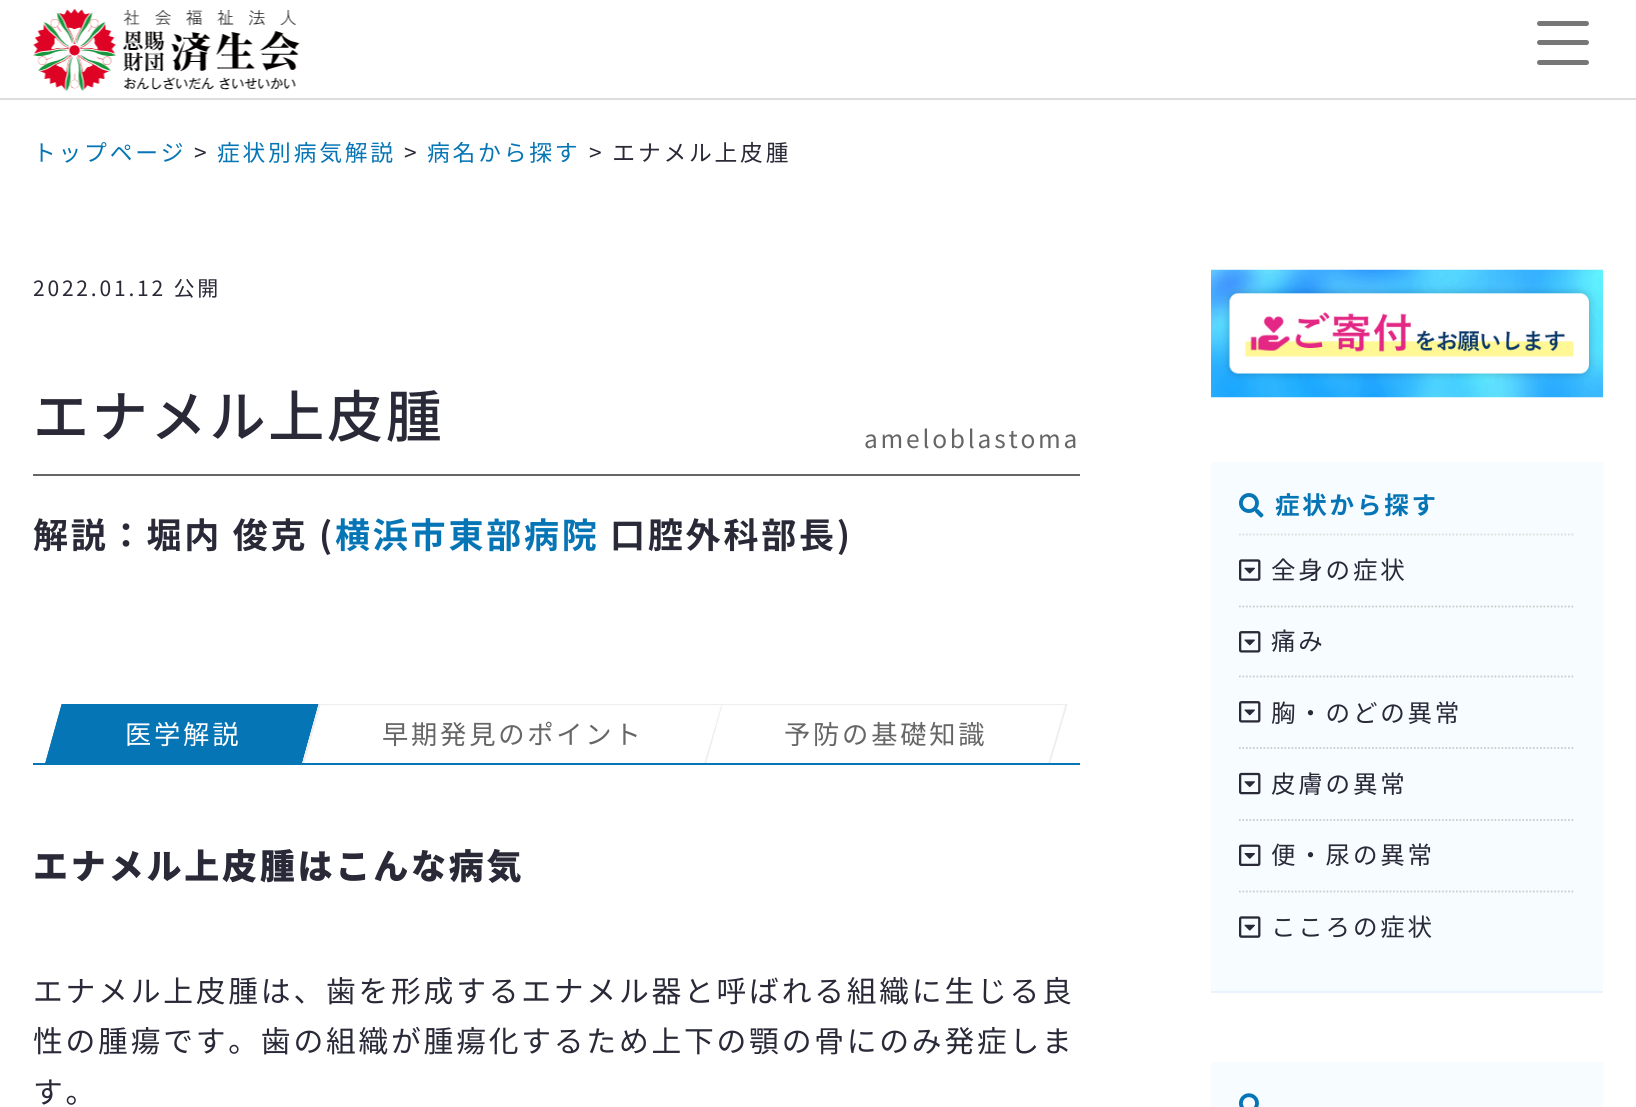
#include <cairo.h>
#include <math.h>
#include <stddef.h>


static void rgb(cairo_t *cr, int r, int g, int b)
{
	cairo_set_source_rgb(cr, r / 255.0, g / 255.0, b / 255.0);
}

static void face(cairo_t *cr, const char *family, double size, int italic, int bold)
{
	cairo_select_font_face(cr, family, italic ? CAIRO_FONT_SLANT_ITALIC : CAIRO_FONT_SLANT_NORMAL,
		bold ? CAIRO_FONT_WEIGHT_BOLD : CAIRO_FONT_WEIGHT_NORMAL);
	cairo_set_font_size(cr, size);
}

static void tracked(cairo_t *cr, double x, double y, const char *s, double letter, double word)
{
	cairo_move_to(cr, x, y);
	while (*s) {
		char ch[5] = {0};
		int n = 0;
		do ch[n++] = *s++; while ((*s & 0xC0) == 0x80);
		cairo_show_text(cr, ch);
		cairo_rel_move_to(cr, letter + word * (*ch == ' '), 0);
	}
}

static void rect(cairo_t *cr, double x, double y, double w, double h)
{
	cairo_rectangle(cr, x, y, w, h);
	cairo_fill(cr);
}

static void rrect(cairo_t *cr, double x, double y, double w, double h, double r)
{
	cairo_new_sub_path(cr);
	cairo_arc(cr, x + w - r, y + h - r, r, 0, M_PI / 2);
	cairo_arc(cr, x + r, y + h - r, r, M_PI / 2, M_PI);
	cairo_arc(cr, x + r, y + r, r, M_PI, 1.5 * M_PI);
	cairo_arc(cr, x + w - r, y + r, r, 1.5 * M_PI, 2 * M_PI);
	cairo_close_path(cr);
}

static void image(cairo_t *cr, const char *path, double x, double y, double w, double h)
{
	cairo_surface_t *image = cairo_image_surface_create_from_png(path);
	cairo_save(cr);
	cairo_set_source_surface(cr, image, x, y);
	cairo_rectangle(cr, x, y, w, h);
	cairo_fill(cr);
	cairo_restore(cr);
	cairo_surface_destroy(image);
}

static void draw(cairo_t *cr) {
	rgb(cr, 255, 255, 255);
	cairo_paint(cr);
	rgb(cr, 221, 221, 221);
	rect(cr, 0, 98, 1636, 2);
	image(cr, "image0.png", 33, 9, 267, 82);
	rgb(cr, 119, 119, 119);
	rrect(cr, 1537, 21, 52, 5, 2.5);
	cairo_fill(cr);
	rrect(cr, 1537, 40, 52, 5, 2.5);
	cairo_fill(cr);
	rrect(cr, 1537, 60, 52, 5, 2.5);
	cairo_fill(cr);
	face(cr, "Noto Sans JP", 22.75, 0, 0);
	rgb(cr, 6, 117, 181);
	tracked(cr, 33, 161, "トップページ", 2.8, 0);
	rgb(cr, 41, 41, 56);
	tracked(cr, 194, 161, ">", 2.8, 0);
	rgb(cr, 6, 117, 181);
	tracked(cr, 217, 161, "症状別病気解説", 2.8, 0);
	rgb(cr, 41, 41, 56);
	tracked(cr, 404, 161, ">", 2.8, 0);
	rgb(cr, 6, 117, 181);
	tracked(cr, 427, 161, "病名から探す", 2.8, 0);
	rgb(cr, 41, 41, 56);
	tracked(cr, 589, 161, "> エナメル上皮腫", 2.8, 0);
	face(cr, "Noto Sans JP", 21, 0, 0);
	tracked(cr, 33, 296, "2022.01.12 公開", 2.8, 0);
	rgb(cr, 102, 102, 102);
	rect(cr, 33, 474, 1047, 2);
	face(cr, "Noto Sans JP Medium", 56, 0, 0);
	rgb(cr, 41, 41, 56);
	tracked(cr, 33, 437, "エナメル上皮腫", 2.8, 0);
	face(cr, "Noto Sans JP", 24.5, 0, 0);
	rgb(cr, 102, 102, 102);
	tracked(cr, 864, 448, "ameloblastoma", 2.8, 0);
	face(cr, "Noto Sans JP", 35, 0, 1);
	rgb(cr, 41, 41, 56);
	tracked(cr, 33, 548, "解説：堀内 俊克 (", 2.8, 0);
	rgb(cr, 6, 117, 181);
	tracked(cr, 335, 548, "横浜市東部病院", 2.8, 0);
	rgb(cr, 41, 41, 56);
	tracked(cr, 610, 548, "口腔外科部長)", 2.8, 0);
	rgb(cr, 6, 117, 181);
	rect(cr, 33, 763, 1047, 2);
	cairo_save(cr);
	cairo_rectangle(cr, 33, 704, 1047, 59);
	cairo_clip(cr);
	cairo_new_path(cr);
	cairo_move_to(cr, 62, 703);
	cairo_line_to(cr, 319, 703);
	cairo_line_to(cr, 302, 764);
	cairo_line_to(cr, 45, 764);
	cairo_close_path(cr);
	cairo_fill(cr);
	cairo_restore(cr);
	rect(cr, 318, 704, 1, 1);
	cairo_save(cr);
	cairo_rectangle(cr, 33, 704, 1047, 59);
	cairo_clip(cr);
	cairo_new_path(cr);
	cairo_move_to(cr, 46, 762);
	cairo_line_to(cr, 303, 762);
	cairo_line_to(cr, 302, 764);
	cairo_line_to(cr, 45, 764);
	cairo_close_path(cr);
	cairo_fill(cr);
	cairo_new_path(cr);
	cairo_move_to(cr, 62, 703);
	cairo_line_to(cr, 64, 703);
	cairo_line_to(cr, 47, 764);
	cairo_line_to(cr, 45, 764);
	cairo_close_path(cr);
	cairo_fill(cr);
	cairo_restore(cr);
	face(cr, "Noto Sans JP", 26.25, 0, 0);
	rgb(cr, 255, 255, 255);
	tracked(cr, 125, 744, "医学解説", 2.8, 0);
	cairo_save(cr);
	cairo_rectangle(cr, 33, 704, 1047, 59);
	cairo_clip(cr);
	cairo_new_path(cr);
	cairo_move_to(cr, 319, 703);
	cairo_line_to(cr, 722, 703);
	cairo_line_to(cr, 704, 764);
	cairo_line_to(cr, 302, 764);
	cairo_close_path(cr);
	cairo_fill(cr);
	rgb(cr, 238, 238, 238);
	cairo_new_path(cr);
	cairo_move_to(cr, 319, 703);
	cairo_line_to(cr, 722, 703);
	cairo_line_to(cr, 721, 705);
	cairo_line_to(cr, 319, 705);
	cairo_close_path(cr);
	cairo_fill(cr);
	cairo_new_path(cr);
	cairo_move_to(cr, 319, 703);
	cairo_line_to(cr, 321, 703);
	cairo_line_to(cr, 304, 764);
	cairo_line_to(cr, 302, 764);
	cairo_close_path(cr);
	cairo_fill(cr);
	cairo_restore(cr);
	rgb(cr, 102, 102, 102);
	tracked(cr, 382, 744, "早期発見のポイント", 2.8, 0);
	cairo_save(cr);
	cairo_rectangle(cr, 33, 704, 1047, 59);
	cairo_clip(cr);
	rgb(cr, 238, 238, 238);
	cairo_new_path(cr);
	cairo_move_to(cr, 722, 703);
	cairo_line_to(cr, 1068, 703);
	cairo_line_to(cr, 1067, 705);
	cairo_line_to(cr, 721, 705);
	cairo_close_path(cr);
	cairo_fill(cr);
	cairo_new_path(cr);
	cairo_move_to(cr, 1066, 703);
	cairo_line_to(cr, 1068, 703);
	cairo_line_to(cr, 1050, 764);
	cairo_line_to(cr, 1048, 764);
	cairo_close_path(cr);
	cairo_fill(cr);
	cairo_new_path(cr);
	cairo_move_to(cr, 722, 703);
	cairo_line_to(cr, 723, 703);
	cairo_line_to(cr, 706, 764);
	cairo_line_to(cr, 704, 764);
	cairo_close_path(cr);
	cairo_fill(cr);
	cairo_restore(cr);
	tracked(cr, 784, 744, "予防の基礎知識", 2.8, 0);
	face(cr, "Noto Sans JP Black", 35, 0, 0);
	rgb(cr, 41, 41, 56);
	tracked(cr, 33, 879, "エナメル上皮腫はこんな病気", 2.8, 0);
	face(cr, "Noto Sans JP", 29.75, 0, 0);
	tracked(cr, 33, 1002, "エナメル上皮腫は、歯を形成するエナメル器と呼ばれる組織に生じる良", 2.8, 0);
	tracked(cr, 33, 1052, "性の腫瘍です。歯の組織が腫瘍化するため上下の顎の骨にのみ発症しま", 2.8, 0);
	tracked(cr, 33, 1103, "す。", 2.8, 0);
	image(cr, "image1.png", 1211, 269, 392, 129);
	rgb(cr, 246, 252, 255);
	rect(cr, 1211, 462, 392, 529);
	rgb(cr, 233, 243, 255);
	rect(cr, 1211, 991, 392, 2);
	cairo_new_path(cr);
	cairo_move_to(cr, 1239, 534.5);
	cairo_line_to(cr, 1575, 534.5);
	rgb(cr, 221, 221, 221);
	cairo_set_line_width(cr, 1.8);
	cairo_set_dash(cr, (double[]){1.75, 1.75}, 2, 0);
	cairo_stroke(cr);
	image(cr, "image2.png", 1239, 493, 25, 25);
	face(cr, "Noto Sans JP", 24.5, 0, 1);
	rgb(cr, 6, 117, 181);
	tracked(cr, 1275, 514, "症状から探す", 2.8, 0);
	cairo_new_path(cr);
	cairo_move_to(cr, 1239, 606.5);
	cairo_line_to(cr, 1575, 606.5);
	rgb(cr, 204, 204, 204);
	cairo_stroke(cr);
	image(cr, "image3.png", 1239, 559, 22, 22);
	face(cr, "Noto Sans JP", 24.5, 0, 0);
	rgb(cr, 41, 41, 56);
	tracked(cr, 1271, 579, "全身の症状", 2.8, 0);
	cairo_new_path(cr);
	cairo_move_to(cr, 1239, 676.5);
	cairo_line_to(cr, 1575, 676.5);
	rgb(cr, 204, 204, 204);
	cairo_stroke(cr);
	image(cr, "image4.png", 1239, 631, 22, 22);
	rgb(cr, 41, 41, 56);
	tracked(cr, 1271, 650, "痛み", 2.8, 0);
	cairo_new_path(cr);
	cairo_move_to(cr, 1239, 748);
	cairo_line_to(cr, 1575, 748);
	rgb(cr, 204, 204, 204);
	cairo_stroke(cr);
	image(cr, "image4.png", 1239, 701, 22, 22);
	rgb(cr, 41, 41, 56);
	tracked(cr, 1271, 722, "胸・のどの異常", 2.8, 0);
	cairo_new_path(cr);
	cairo_move_to(cr, 1239, 820);
	cairo_line_to(cr, 1575, 820);
	rgb(cr, 204, 204, 204);
	cairo_stroke(cr);
	image(cr, "image5.png", 1239, 772, 22, 23);
	rgb(cr, 41, 41, 56);
	tracked(cr, 1271, 793, "皮膚の異常", 2.8, 0);
	cairo_new_path(cr);
	cairo_move_to(cr, 1239, 891.5);
	cairo_line_to(cr, 1575, 891.5);
	rgb(cr, 204, 204, 204);
	cairo_stroke(cr);
	image(cr, "image6.png", 1239, 844, 22, 22);
	rgb(cr, 41, 41, 56);
	tracked(cr, 1271, 864, "便・尿の異常", 2.8, 0);
	image(cr, "image3.png", 1239, 916, 22, 22);
	tracked(cr, 1271, 936, "こころの症状", 2.8, 0);
	rgb(cr, 246, 252, 255);
	rect(cr, 1211, 1062, 392, 45);
	image(cr, "image7.png", 1239, 1093, 20, 14);
}

int main(void) {
	cairo_surface_t *surface = cairo_image_surface_create(CAIRO_FORMAT_RGB24, 1636, 1107);
	cairo_t *cr = cairo_create(surface);
	cairo_font_options_t *options = cairo_font_options_create();
	cairo_font_options_set_hint_metrics(options, CAIRO_HINT_METRICS_OFF);
	cairo_font_options_set_hint_style(options, CAIRO_HINT_STYLE_NONE);
	cairo_set_font_options(cr, options);
	cairo_set_miter_limit(cr, 4);
	draw(cr);
	cairo_surface_write_to_png(surface, "render.png");
	cairo_font_options_destroy(options);
	cairo_destroy(cr);
	cairo_surface_destroy(surface);
	return 0;
}
